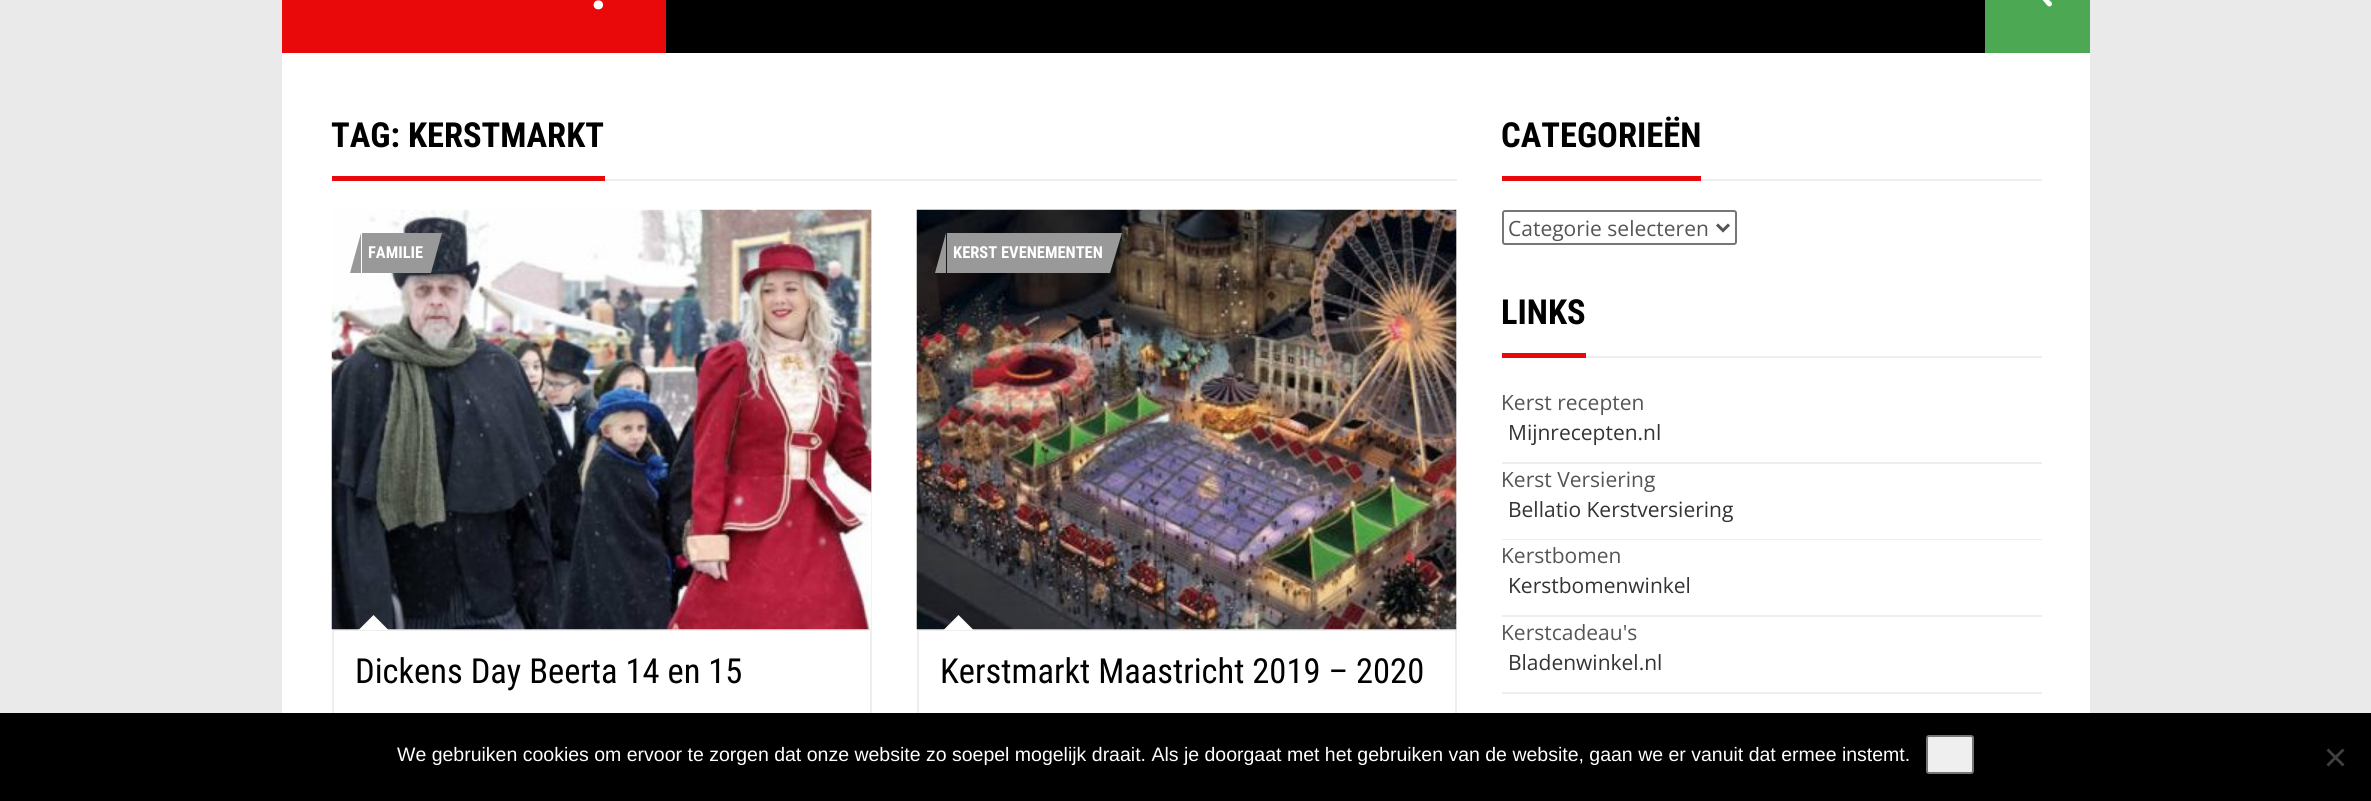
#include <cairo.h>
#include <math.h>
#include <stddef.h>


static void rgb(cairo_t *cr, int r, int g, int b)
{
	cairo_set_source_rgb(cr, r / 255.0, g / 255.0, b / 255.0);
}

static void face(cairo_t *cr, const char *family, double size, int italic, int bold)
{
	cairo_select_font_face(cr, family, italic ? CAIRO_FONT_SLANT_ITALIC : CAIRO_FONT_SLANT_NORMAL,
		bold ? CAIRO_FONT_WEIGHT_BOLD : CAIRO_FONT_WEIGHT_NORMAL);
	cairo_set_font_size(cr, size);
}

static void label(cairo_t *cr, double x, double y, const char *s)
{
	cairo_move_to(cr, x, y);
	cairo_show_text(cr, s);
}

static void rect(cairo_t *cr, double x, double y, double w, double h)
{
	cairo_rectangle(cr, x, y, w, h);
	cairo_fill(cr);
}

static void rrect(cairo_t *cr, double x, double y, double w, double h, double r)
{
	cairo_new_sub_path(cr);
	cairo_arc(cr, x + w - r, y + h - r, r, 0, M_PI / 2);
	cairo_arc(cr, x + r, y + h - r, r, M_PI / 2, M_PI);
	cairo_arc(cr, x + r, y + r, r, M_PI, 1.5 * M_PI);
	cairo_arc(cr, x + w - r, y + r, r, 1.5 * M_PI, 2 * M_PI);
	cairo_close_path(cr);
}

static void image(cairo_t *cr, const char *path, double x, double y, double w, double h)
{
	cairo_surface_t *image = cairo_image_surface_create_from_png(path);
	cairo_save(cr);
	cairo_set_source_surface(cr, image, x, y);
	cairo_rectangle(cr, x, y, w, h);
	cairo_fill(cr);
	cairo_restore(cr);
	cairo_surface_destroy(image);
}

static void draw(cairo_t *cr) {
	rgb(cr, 234, 234, 234);
	cairo_paint(cr);
	rgb(cr, 255, 255, 255);
	rect(cr, 282, 53, 1808, 660);
	rgb(cr, 0, 0, 0);
	rect(cr, 666, 0, 1319, 53);
	rgb(cr, 233, 8, 10);
	rect(cr, 282, 0, 384, 53);
	face(cr, "Roboto Condensed", 59, 0, 1);
	rgb(cr, 255, 255, 255);
	label(cr, 590, 9, ".");
	rgb(cr, 77, 168, 84);
	rect(cr, 1985, 0, 105, 53);
	image(cr, "image0.png", 2042, 0, 10, 7);
	rgb(cr, 238, 238, 238);
	rect(cr, 605, 179, 852, 2);
	rgb(cr, 233, 8, 10);
	rect(cr, 332, 176, 273, 5);
	face(cr, "Roboto Condensed", 34.5, 0, 1);
	rgb(cr, 0, 0, 0);
	label(cr, 331, 147, "TAG: KERSTMARKT");
	rgb(cr, 238, 238, 238);
	rect(cr, 332, 210, 540, 419);
	cairo_rectangle(cr, 333, 630, 538, 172);
	cairo_stroke(cr);
	image(cr, "image1.png", 331, 209, 541, 421);
	rgb(cr, 153, 153, 153);
	rect(cr, 362, 233, 69, 40);
	cairo_new_path(cr);
	cairo_move_to(cr, 361, 233);
	cairo_line_to(cr, 361, 273);
	cairo_line_to(cr, 350, 273);
	cairo_close_path(cr);
	cairo_fill(cr);
	face(cr, "Roboto Condensed", 16.5, 0, 1);
	rgb(cr, 255, 255, 255);
	label(cr, 368, 258, "FAMILIE");
	rgb(cr, 153, 153, 153);
	cairo_new_path(cr);
	cairo_move_to(cr, 431, 273);
	cairo_line_to(cr, 431, 233);
	cairo_line_to(cr, 442, 233);
	cairo_close_path(cr);
	cairo_fill(cr);
	rgb(cr, 255, 255, 255);
	cairo_new_path(cr);
	cairo_move_to(cr, 388.5, 630);
	cairo_line_to(cr, 358.5, 630);
	cairo_line_to(cr, 373.5, 615);
	cairo_close_path(cr);
	cairo_fill(cr);
	face(cr, "Roboto Condensed", 34.5, 0, 0);
	rgb(cr, 0, 0, 0);
	label(cr, 355, 683, "Dickens Day Beerta 14 en 15");
	rgb(cr, 238, 238, 238);
	rect(cr, 917, 210, 540, 419);
	cairo_rectangle(cr, 918, 630, 538, 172);
	cairo_stroke(cr);
	image(cr, "image2.png", 916, 209, 541, 421);
	rgb(cr, 153, 153, 153);
	rect(cr, 947, 233, 163, 40);
	cairo_new_path(cr);
	cairo_move_to(cr, 946, 233);
	cairo_line_to(cr, 946, 273);
	cairo_line_to(cr, 935, 273);
	cairo_close_path(cr);
	cairo_fill(cr);
	face(cr, "Roboto Condensed", 16.5, 0, 1);
	rgb(cr, 255, 255, 255);
	label(cr, 953, 258, "KERST EVENEMENTEN");
	rgb(cr, 153, 153, 153);
	cairo_new_path(cr);
	cairo_move_to(cr, 1110, 273);
	cairo_line_to(cr, 1110, 233);
	cairo_line_to(cr, 1122, 233);
	cairo_close_path(cr);
	cairo_fill(cr);
	rgb(cr, 255, 255, 255);
	cairo_new_path(cr);
	cairo_move_to(cr, 973.5, 630);
	cairo_line_to(cr, 943.5, 630);
	cairo_line_to(cr, 958.5, 615);
	cairo_close_path(cr);
	cairo_fill(cr);
	face(cr, "Roboto Condensed", 34.5, 0, 0);
	rgb(cr, 0, 0, 0);
	label(cr, 940, 683, "Kerstmarkt Maastricht 2019 – 2020");
	rgb(cr, 238, 238, 238);
	rect(cr, 1701, 179, 341, 2);
	rgb(cr, 233, 8, 10);
	rect(cr, 1502, 176, 199, 5);
	face(cr, "Roboto Condensed", 34.5, 0, 1);
	rgb(cr, 0, 0, 0);
	label(cr, 1501, 147, "CATEGORIEËN");
	rrect(cr, 1503, 211, 233, 33, 2);
	rgb(cr, 118, 118, 118);
	cairo_stroke(cr);
	cairo_new_path(cr);
	cairo_move_to(cr, 1717, 224.5);
	cairo_line_to(cr, 1723, 230.5);
	cairo_line_to(cr, 1729, 224.5);
	rgb(cr, 85, 85, 85);
	cairo_set_line_width(cr, 3);
	cairo_stroke(cr);
	face(cr, "Open Sans", 21, 0, 0);
	label(cr, 1508, 236, "Categorie selecteren");
	rgb(cr, 238, 238, 238);
	rect(cr, 1586, 356, 456, 2);
	rgb(cr, 233, 8, 10);
	rect(cr, 1502, 353, 84, 5);
	face(cr, "Roboto Condensed", 34.5, 0, 1);
	rgb(cr, 0, 0, 0);
	label(cr, 1501, 324, "LINKS");
	face(cr, "Open Sans", 21, 0, 0);
	rgb(cr, 85, 85, 85);
	label(cr, 1501, 410, "Kerst recepten");
	rgb(cr, 238, 238, 238);
	rect(cr, 1502, 462, 540, 2);
	rgb(cr, 51, 51, 51);
	label(cr, 1508, 440, "Mijnrecepten.nl");
	rgb(cr, 85, 85, 85);
	label(cr, 1501, 487, "Kerst Versiering");
	rgb(cr, 238, 238, 238);
	rect(cr, 1502, 539, 540, 1);
	rgb(cr, 51, 51, 51);
	label(cr, 1508, 517, "Bellatio Kerstversiering");
	rgb(cr, 85, 85, 85);
	label(cr, 1501, 563, "Kerstbomen");
	rgb(cr, 238, 238, 238);
	rect(cr, 1502, 615, 540, 2);
	rgb(cr, 51, 51, 51);
	label(cr, 1508, 593, "Kerstbomenwinkel");
	rgb(cr, 85, 85, 85);
	label(cr, 1501, 640, "Kerstcadeau's");
	rgb(cr, 238, 238, 238);
	rect(cr, 1502, 692, 540, 2);
	rgb(cr, 51, 51, 51);
	label(cr, 1508, 670, "Bladenwinkel.nl");
	rgb(cr, 0, 0, 0);
	rect(cr, 0, 713, 2371, 88);
	face(cr, "Liberation Sans", 19.5, 0, 0);
	rgb(cr, 255, 255, 255);
	label(cr, 397, 761, "We gebruiken cookies om ervoor te zorgen dat onze website zo soepel mogelijk draait. Als je doorgaat met het gebruiken van de website, gaan we er vanuit dat ermee instemt.");
	rgb(cr, 239, 239, 239);
	rrect(cr, 1927, 736, 46, 37, 2);
	cairo_fill_preserve(cr);
	rgb(cr, 118, 118, 118);
	cairo_set_line_width(cr, 2);
	cairo_stroke(cr);
	rgb(cr, 64, 64, 64);
	cairo_new_path(cr);
	cairo_move_to(cr, 2342.5, 748.5);
	cairo_line_to(cr, 2344.5, 750.5);
	cairo_line_to(cr, 2328.5, 766.5);
	cairo_line_to(cr, 2326.5, 764.5);
	cairo_close_path(cr);
	cairo_fill(cr);
	cairo_new_path(cr);
	cairo_move_to(cr, 2326.5, 750.5);
	cairo_line_to(cr, 2328.5, 748.5);
	cairo_line_to(cr, 2344.5, 764.5);
	cairo_line_to(cr, 2342.5, 766.5);
	cairo_close_path(cr);
	cairo_fill(cr);
}

int main(void) {
	cairo_surface_t *surface = cairo_image_surface_create(CAIRO_FORMAT_RGB24, 2371, 801);
	cairo_t *cr = cairo_create(surface);
	cairo_font_options_t *options = cairo_font_options_create();
	cairo_font_options_set_hint_metrics(options, CAIRO_HINT_METRICS_OFF);
	cairo_font_options_set_hint_style(options, CAIRO_HINT_STYLE_NONE);
	cairo_set_font_options(cr, options);
	cairo_set_miter_limit(cr, 4);
	draw(cr);
	cairo_surface_write_to_png(surface, "render.png");
	cairo_font_options_destroy(options);
	cairo_destroy(cr);
	cairo_surface_destroy(surface);
	return 0;
}
